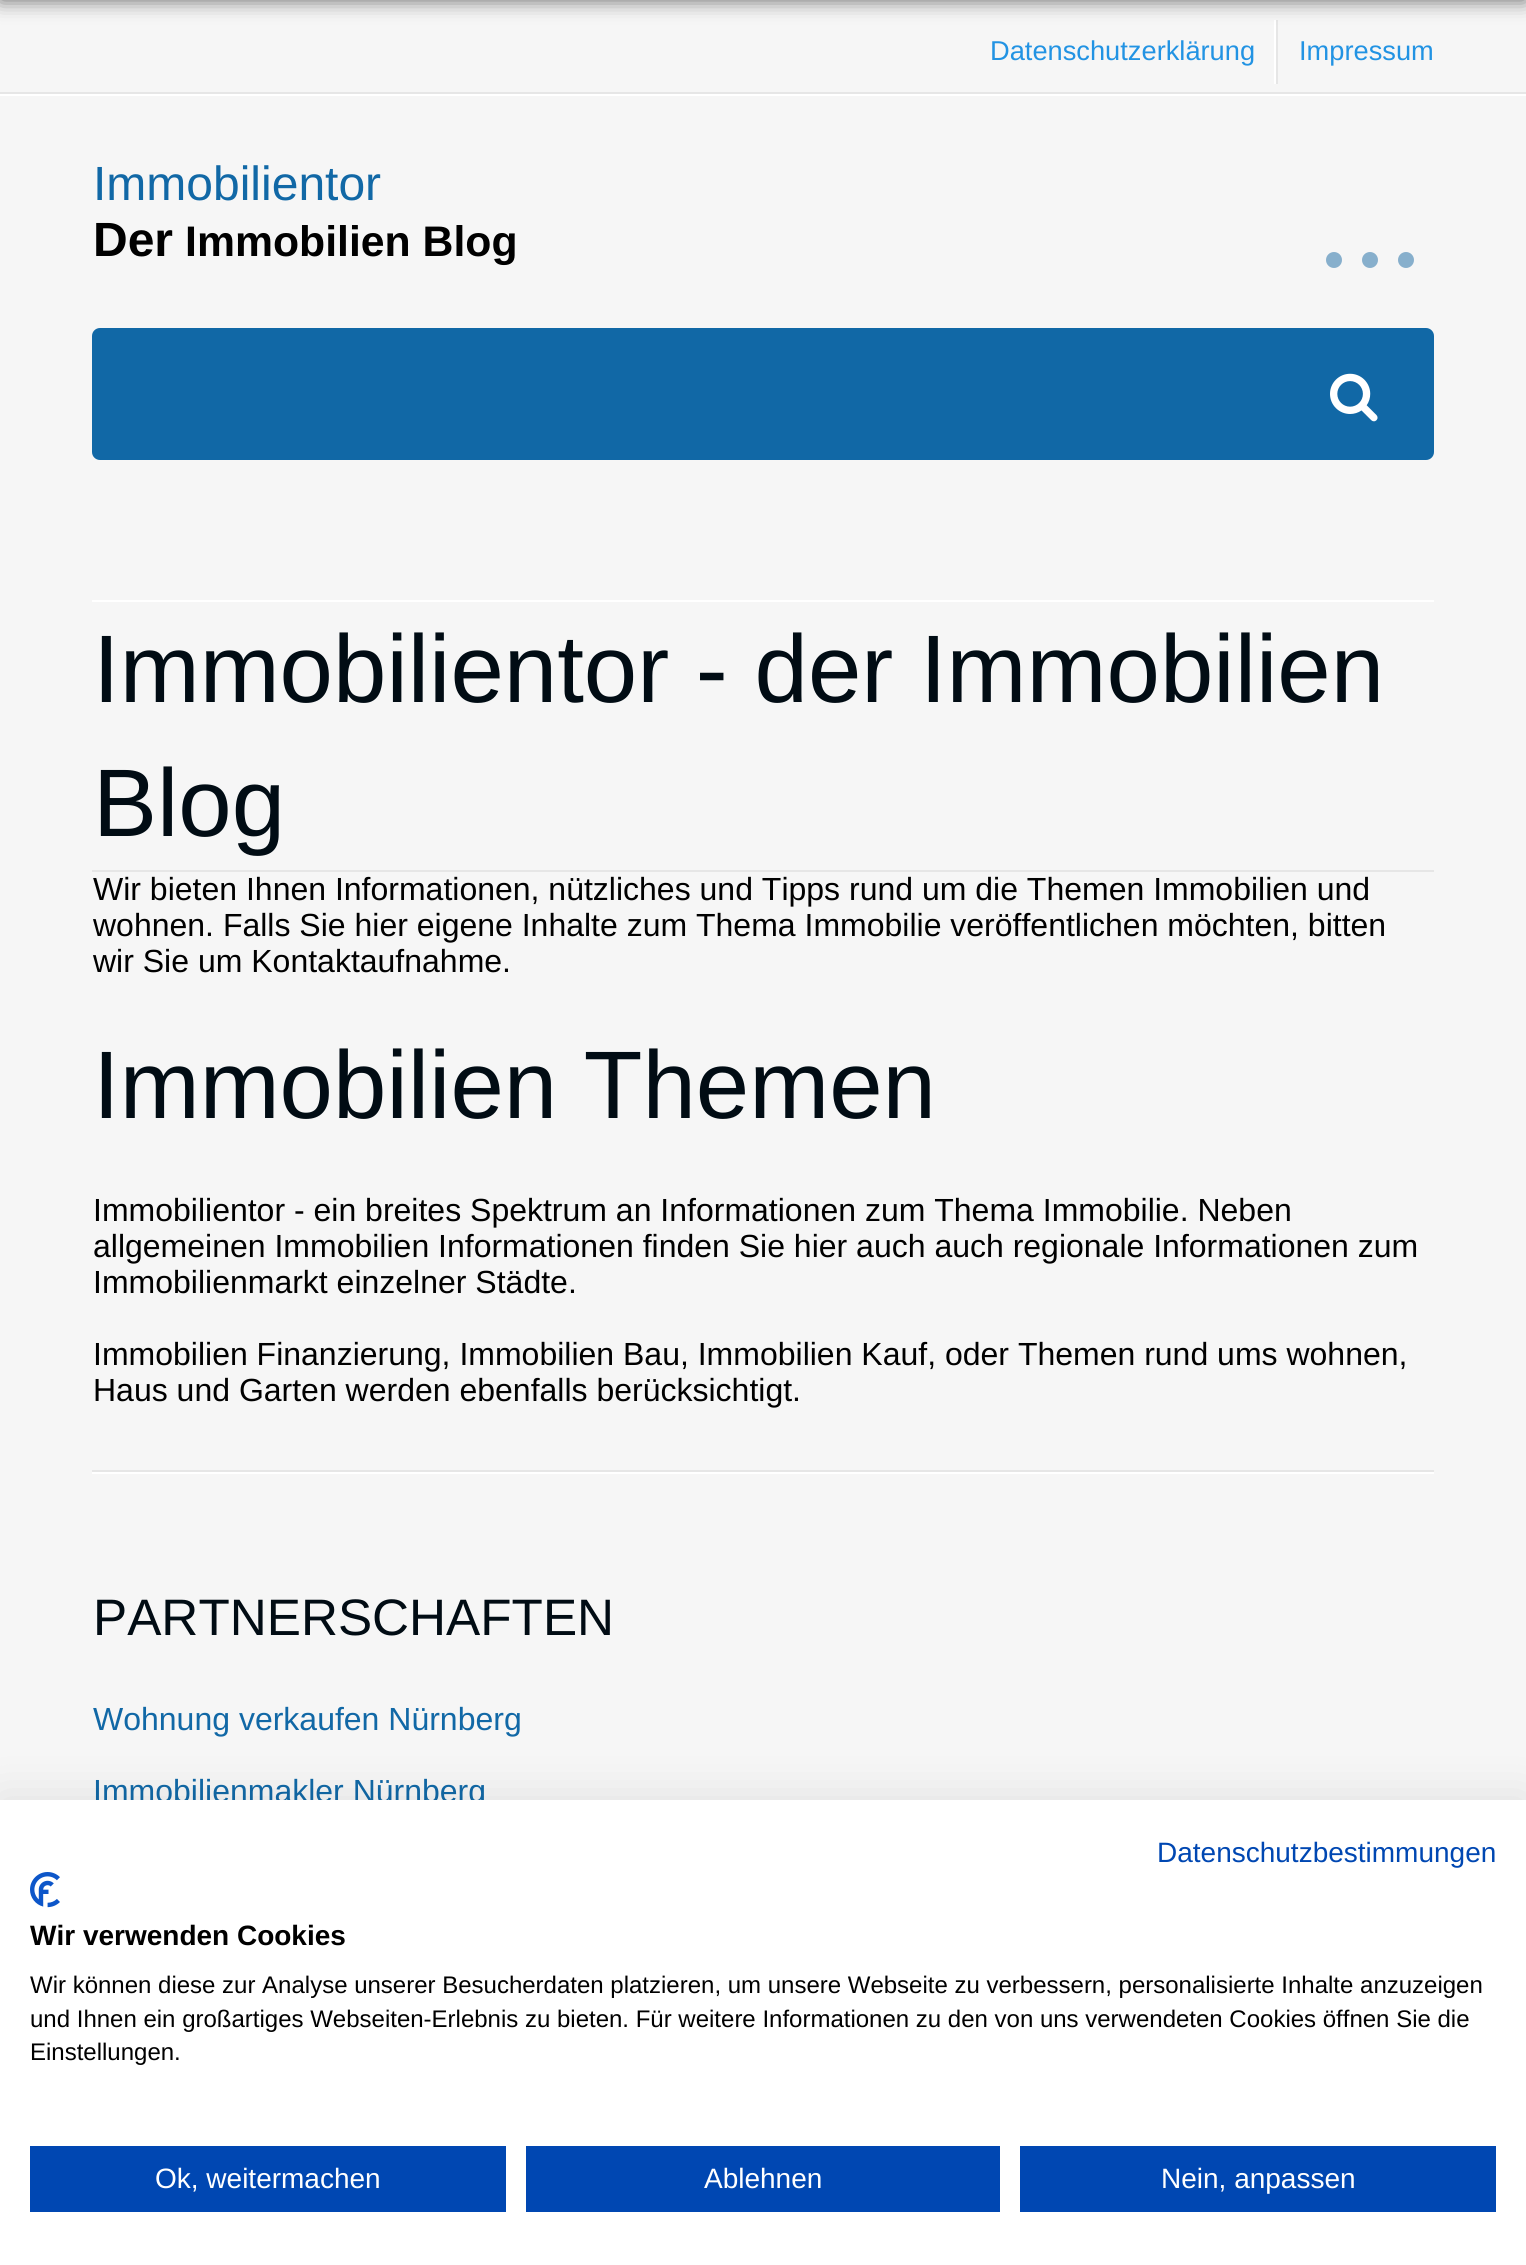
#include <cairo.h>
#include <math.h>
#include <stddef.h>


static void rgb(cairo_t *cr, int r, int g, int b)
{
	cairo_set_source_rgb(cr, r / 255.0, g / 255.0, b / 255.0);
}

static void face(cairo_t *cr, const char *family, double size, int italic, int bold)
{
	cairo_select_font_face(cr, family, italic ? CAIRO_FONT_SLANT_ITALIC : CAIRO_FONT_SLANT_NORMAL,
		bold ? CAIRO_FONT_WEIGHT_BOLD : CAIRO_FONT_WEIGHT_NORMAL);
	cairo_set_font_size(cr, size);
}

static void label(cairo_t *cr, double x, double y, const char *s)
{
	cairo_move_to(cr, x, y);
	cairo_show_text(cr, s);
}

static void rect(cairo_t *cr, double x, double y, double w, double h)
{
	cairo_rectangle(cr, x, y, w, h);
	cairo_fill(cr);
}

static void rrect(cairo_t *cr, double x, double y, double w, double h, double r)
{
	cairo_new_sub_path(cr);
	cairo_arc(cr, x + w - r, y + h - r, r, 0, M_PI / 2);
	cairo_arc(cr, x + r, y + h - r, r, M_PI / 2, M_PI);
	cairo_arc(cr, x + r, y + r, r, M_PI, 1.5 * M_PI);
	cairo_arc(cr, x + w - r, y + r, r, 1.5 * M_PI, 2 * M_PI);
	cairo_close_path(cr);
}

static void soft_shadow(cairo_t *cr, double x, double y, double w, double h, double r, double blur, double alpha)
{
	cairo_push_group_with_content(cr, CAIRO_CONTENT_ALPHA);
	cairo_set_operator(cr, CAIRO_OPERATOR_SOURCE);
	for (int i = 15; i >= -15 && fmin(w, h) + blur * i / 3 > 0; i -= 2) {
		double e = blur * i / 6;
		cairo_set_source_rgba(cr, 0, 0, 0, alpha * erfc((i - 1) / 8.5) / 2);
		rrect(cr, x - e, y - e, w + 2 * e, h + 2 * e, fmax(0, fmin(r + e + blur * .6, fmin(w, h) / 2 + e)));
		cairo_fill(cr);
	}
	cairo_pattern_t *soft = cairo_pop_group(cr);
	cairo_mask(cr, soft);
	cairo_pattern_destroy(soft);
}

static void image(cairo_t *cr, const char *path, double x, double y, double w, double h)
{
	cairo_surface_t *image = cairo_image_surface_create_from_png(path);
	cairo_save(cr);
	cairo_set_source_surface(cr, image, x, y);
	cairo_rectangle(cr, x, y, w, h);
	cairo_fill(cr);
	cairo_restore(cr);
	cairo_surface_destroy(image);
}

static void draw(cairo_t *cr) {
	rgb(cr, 246, 246, 246);
	cairo_paint(cr);
	rgb(cr, 255, 255, 255);
	rect(cr, 1274, 20, 2, 64);
	rgb(cr, 230, 230, 230);
	rect(cr, 1276, 20, 2, 64);
	rgb(cr, 0, 0, 0);
	soft_shadow(cr, 0, -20, 1526, 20, 0, 10, 0.6);
	rgb(cr, 230, 230, 230);
	rect(cr, 0, 92, 1526, 2);
	face(cr, "Liberation Sans", 27.25, 0, 0);
	rgb(cr, 34, 147, 227);
	label(cr, 990, 60, "Datenschutzerklärung");
	label(cr, 1299, 60, "Impressum");
	rgb(cr, 255, 255, 255);
	rect(cr, 0, 94, 1526, 2);
	face(cr, "Liberation Sans", 48, 0, 0);
	rgb(cr, 17, 104, 166);
	label(cr, 93, 200, "Immobilientor");
	face(cr, "Liberation Sans", 48, 0, 1);
	rgb(cr, 0, 0, 0);
	label(cr, 93, 256, "Der");
	face(cr, "Liberation Sans", 42.75, 0, 1);
	label(cr, 185, 256, "Immobilien Blog");
	rgb(cr, 135, 175, 204);
	cairo_new_path(cr);
	cairo_arc(cr, 1334, 260, 8, 0, 2 * M_PI);
	cairo_fill(cr);
	cairo_arc(cr, 1370, 260, 8, 0, 2 * M_PI);
	cairo_fill(cr);
	cairo_arc(cr, 1406, 260, 8, 0, 2 * M_PI);
	cairo_fill(cr);
	rgb(cr, 17, 104, 166);
	rrect(cr, 92, 328, 1342, 132, 8);
	cairo_fill(cr);
	image(cr, "image0.png", 1330, 373, 48, 49);
	rgb(cr, 255, 255, 255);
	rect(cr, 92, 1472, 1342, 2);
	rect(cr, 92, 600, 1342, 2);
	rgb(cr, 230, 230, 230);
	rect(cr, 92, 870, 1342, 2);
	face(cr, "Liberation Sans", 96, 0, 0);
	rgb(cr, 1, 12, 20);
	label(cr, 93, 702, "Immobilientor - der Immobilien");
	label(cr, 93, 836, "Blog");
	face(cr, "Liberation Sans", 32, 0, 0);
	rgb(cr, 0, 0, 0);
	label(cr, 93, 900, "Wir bieten Ihnen Informationen, nützliches und Tipps rund um die Themen Immobilien und");
	label(cr, 93, 936, "wohnen. Falls Sie hier eigene Inhalte zum Thema Immobilie veröffentlichen möchten, bitten");
	label(cr, 93, 972, "wir Sie um Kontaktaufnahme.");
	face(cr, "Liberation Sans", 96, 0, 0);
	rgb(cr, 1, 12, 20);
	label(cr, 93, 1118, "Immobilien Themen");
	face(cr, "Liberation Sans", 32, 0, 0);
	rgb(cr, 0, 0, 0);
	label(cr, 93, 1221, "Immobilientor - ein breites Spektrum an Informationen zum Thema Immobilie. Neben");
	label(cr, 93, 1257, "allgemeinen Immobilien Informationen finden Sie hier auch auch regionale Informationen zum");
	label(cr, 93, 1293, "Immobilienmarkt einzelner Städte.");
	label(cr, 93, 1365, "Immobilien Finanzierung, Immobilien Bau, Immobilien Kauf, oder Themen rund ums wohnen,");
	label(cr, 93, 1401, "Haus und Garten werden ebenfalls berücksichtigt.");
	rgb(cr, 230, 230, 230);
	rect(cr, 92, 1470, 1342, 2);
	face(cr, "Liberation Sans", 51.25, 0, 0);
	rgb(cr, 1, 12, 20);
	label(cr, 93, 1635, "PARTNERSCHAFTEN");
	face(cr, "Liberation Sans", 32, 0, 0);
	rgb(cr, 17, 104, 166);
	label(cr, 93, 1730, "Wohnung verkaufen Nürnberg");
	label(cr, 93, 1802, "Immobilienmakler Nürnberg");
	rgb(cr, 0, 0, 0);
	soft_shadow(cr, 0, 1800, 1526, 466, 0, 24, 0.1);
	rgb(cr, 255, 255, 255);
	rect(cr, 0, 1800, 1526, 465);
	face(cr, "Liberation Sans", 28, 0, 0);
	rgb(cr, 0, 71, 178);
	label(cr, 1157, 1862, "Datenschutzbestimmungen");
	image(cr, "image1.png", 30, 1872, 30, 36);
	face(cr, "Liberation Sans", 28, 0, 1);
	rgb(cr, 0, 0, 0);
	label(cr, 30, 1945, "Wir verwenden Cookies");
	face(cr, "Liberation Sans", 24, 0, 0);
	label(cr, 30, 1993, "Wir können diese zur Analyse unserer Besucherdaten platzieren, um unsere Webseite zu verbessern, personalisierte Inhalte anzuzeigen");
	label(cr, 30, 2027, "und Ihnen ein großartiges Webseiten-Erlebnis zu bieten. Für weitere Informationen zu den von uns verwendeten Cookies öffnen Sie die");
	label(cr, 30, 2060, "Einstellungen.");
	rgb(cr, 0, 71, 178);
	rect(cr, 30, 2146, 476, 66);
	face(cr, "Liberation Sans", 28, 0, 0);
	rgb(cr, 255, 255, 255);
	label(cr, 155, 2188, "Ok, weitermachen");
	rgb(cr, 0, 71, 178);
	rect(cr, 526, 2146, 474, 66);
	rgb(cr, 255, 255, 255);
	label(cr, 704, 2188, "Ablehnen");
	rgb(cr, 0, 71, 178);
	rect(cr, 1020, 2146, 476, 66);
	rgb(cr, 255, 255, 255);
	label(cr, 1161, 2188, "Nein, anpassen");
}

int main(void) {
	cairo_surface_t *surface = cairo_image_surface_create(CAIRO_FORMAT_RGB24, 1526, 2265);
	cairo_t *cr = cairo_create(surface);
	cairo_font_options_t *options = cairo_font_options_create();
	cairo_font_options_set_hint_metrics(options, CAIRO_HINT_METRICS_OFF);
	cairo_font_options_set_hint_style(options, CAIRO_HINT_STYLE_NONE);
	cairo_set_font_options(cr, options);
	cairo_set_miter_limit(cr, 4);
	draw(cr);
	cairo_surface_write_to_png(surface, "render.png");
	cairo_font_options_destroy(options);
	cairo_destroy(cr);
	cairo_surface_destroy(surface);
	return 0;
}
